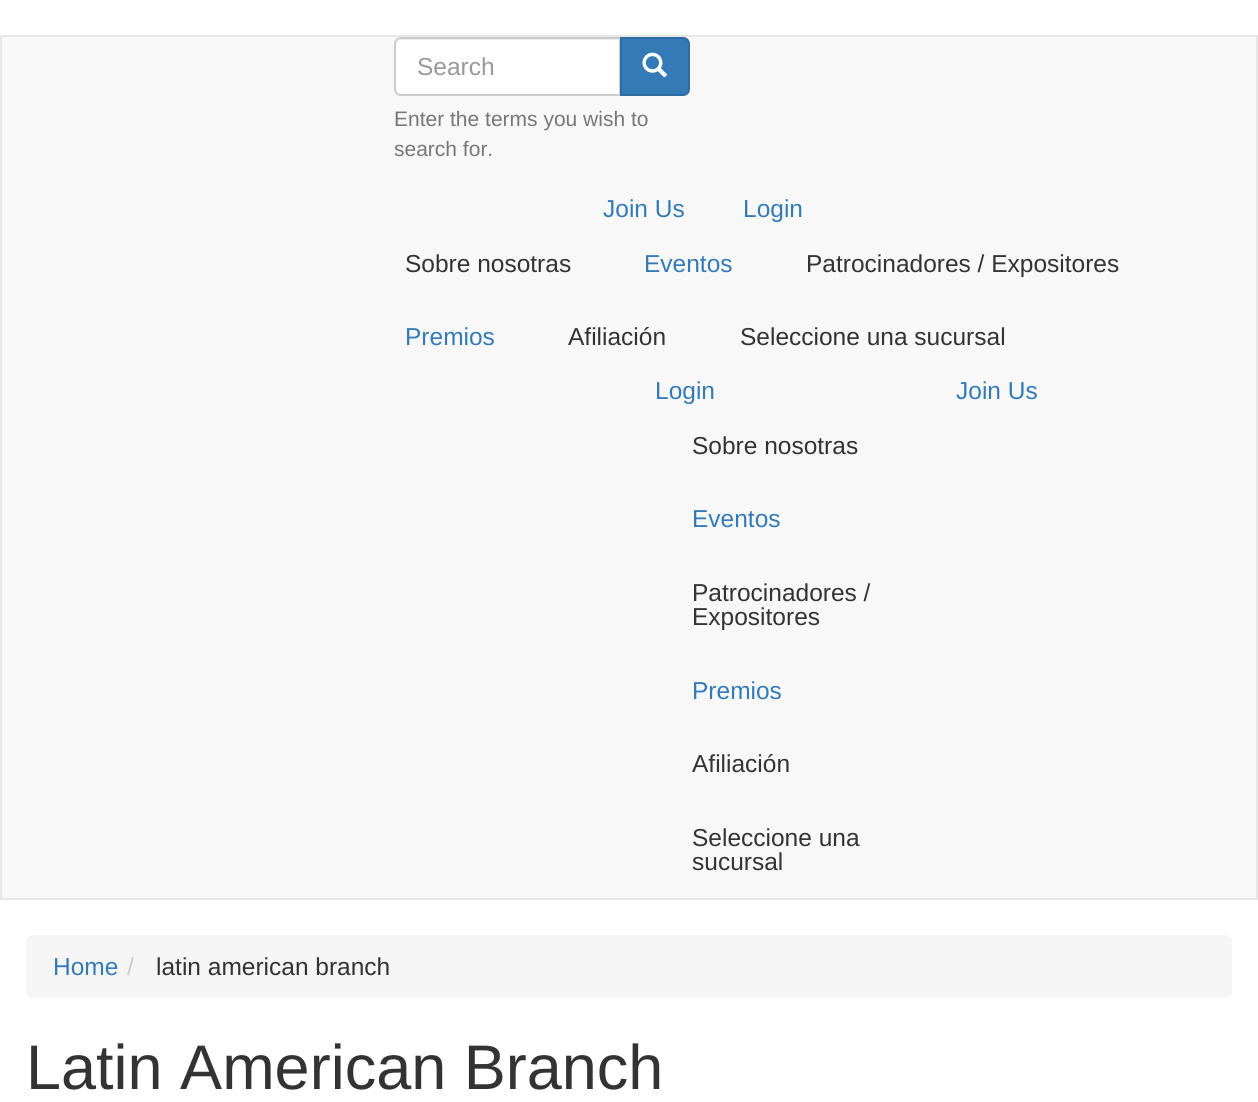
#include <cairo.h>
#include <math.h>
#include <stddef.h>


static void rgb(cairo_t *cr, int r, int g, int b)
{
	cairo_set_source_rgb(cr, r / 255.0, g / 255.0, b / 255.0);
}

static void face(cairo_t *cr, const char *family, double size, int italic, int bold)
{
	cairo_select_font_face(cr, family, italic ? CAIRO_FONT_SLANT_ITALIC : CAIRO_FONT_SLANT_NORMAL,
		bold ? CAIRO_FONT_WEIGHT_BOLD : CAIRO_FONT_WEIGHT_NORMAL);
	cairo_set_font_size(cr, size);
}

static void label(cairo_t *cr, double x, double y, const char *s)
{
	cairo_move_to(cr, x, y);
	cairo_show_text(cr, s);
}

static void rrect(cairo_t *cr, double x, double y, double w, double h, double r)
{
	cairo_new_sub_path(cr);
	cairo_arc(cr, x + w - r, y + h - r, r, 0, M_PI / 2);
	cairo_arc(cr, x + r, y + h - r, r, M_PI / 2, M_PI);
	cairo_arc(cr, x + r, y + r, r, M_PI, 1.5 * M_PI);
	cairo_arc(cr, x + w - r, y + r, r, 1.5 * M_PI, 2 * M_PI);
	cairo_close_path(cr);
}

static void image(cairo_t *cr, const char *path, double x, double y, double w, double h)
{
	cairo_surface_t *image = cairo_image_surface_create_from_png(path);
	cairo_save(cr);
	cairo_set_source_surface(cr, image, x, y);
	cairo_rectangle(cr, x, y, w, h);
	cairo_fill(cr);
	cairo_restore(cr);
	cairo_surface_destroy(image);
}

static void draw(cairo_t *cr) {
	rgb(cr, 255, 255, 255);
	cairo_paint(cr);
	rgb(cr, 248, 248, 248);
	cairo_rectangle(cr, 1, 36, 1256, 863);
	cairo_fill_preserve(cr);
	rgb(cr, 231, 231, 231);
	cairo_stroke(cr);
	rgb(cr, 255, 255, 255);
	cairo_new_path(cr);
	cairo_move_to(cr, 401, 37);
	cairo_line_to(cr, 621, 37);
	cairo_line_to(cr, 621, 96);
	cairo_line_to(cr, 401, 96);
	cairo_curve_to(cr, 397, 96, 394, 93, 394, 89);
	cairo_line_to(cr, 394, 44);
	cairo_curve_to(cr, 394, 40, 397, 37, 401, 37);
	cairo_close_path(cr);
	cairo_fill(cr);
	rgb(cr, 236, 236, 236);
	cairo_new_path(cr);
	cairo_move_to(cr, 401, 40);
	cairo_line_to(cr, 620, 40);
	cairo_line_to(cr, 620, 39);
	cairo_line_to(cr, 401, 39);
	cairo_curve_to(cr, 398, 39, 396, 41, 396, 44);
	cairo_line_to(cr, 396, 46);
	cairo_curve_to(cr, 396, 43, 398, 40, 401, 40);
	cairo_close_path(cr);
	cairo_fill(cr);
	cairo_new_path(cr);
	cairo_move_to(cr, 401, 38);
	cairo_line_to(cr, 620, 38);
	cairo_line_to(cr, 620, 95);
	cairo_line_to(cr, 401, 95);
	cairo_curve_to(cr, 397.5, 95, 395, 92.5, 395, 89);
	cairo_line_to(cr, 395, 44);
	cairo_curve_to(cr, 395, 40.5, 397.5, 38, 401, 38);
	cairo_close_path(cr);
	rgb(cr, 204, 204, 204);
	cairo_stroke(cr);
	face(cr, "Liberation Sans", 24.5, 0, 0);
	rgb(cr, 153, 153, 153);
	label(cr, 417, 75, "Search");
	rgb(cr, 51, 122, 183);
	cairo_new_path(cr);
	cairo_move_to(cr, 621, 38);
	cairo_line_to(cr, 683, 38);
	cairo_curve_to(cr, 686.5, 38, 689, 40.5, 689, 44);
	cairo_line_to(cr, 689, 89);
	cairo_curve_to(cr, 689, 92.5, 686.5, 95, 683, 95);
	cairo_line_to(cr, 621, 95);
	cairo_close_path(cr);
	cairo_fill_preserve(cr);
	rgb(cr, 46, 109, 164);
	cairo_stroke(cr);
	image(cr, "image0.png", 642, 52, 25, 26);
	face(cr, "Liberation Sans", 21, 0, 0);
	rgb(cr, 119, 119, 119);
	label(cr, 394, 126, "Enter the terms you wish to");
	label(cr, 394, 156, "search for.");
	face(cr, "Liberation Sans", 24.5, 0, 0);
	rgb(cr, 51, 122, 183);
	label(cr, 603, 217, "Join Us");
	label(cr, 743, 217, "Login");
	rgb(cr, 51, 51, 51);
	label(cr, 405, 272, "Sobre nosotras");
	rgb(cr, 51, 122, 183);
	label(cr, 644, 272, "Eventos");
	rgb(cr, 51, 51, 51);
	label(cr, 806, 272, "Patrocinadores / Expositores");
	rgb(cr, 51, 122, 183);
	label(cr, 405, 345, "Premios");
	rgb(cr, 51, 51, 51);
	label(cr, 568, 345, "Afiliación");
	label(cr, 740, 345, "Seleccione una sucursal");
	rgb(cr, 51, 122, 183);
	label(cr, 655, 399, "Login");
	label(cr, 956, 399, "Join Us");
	rgb(cr, 51, 51, 51);
	label(cr, 692, 454, "Sobre nosotras");
	rgb(cr, 51, 122, 183);
	label(cr, 692, 527, "Eventos");
	rgb(cr, 51, 51, 51);
	label(cr, 692, 601, "Patrocinadores /");
	label(cr, 692, 625, "Expositores");
	rgb(cr, 51, 122, 183);
	label(cr, 692, 699, "Premios");
	rgb(cr, 51, 51, 51);
	label(cr, 692, 772, "Afiliación");
	label(cr, 692, 846, "Seleccione una");
	label(cr, 692, 870, "sucursal");
	rgb(cr, 245, 245, 245);
	rrect(cr, 26, 935, 1206, 63, 7);
	cairo_fill(cr);
	rgb(cr, 51, 122, 183);
	label(cr, 53, 975, "Home");
	rgb(cr, 204, 204, 204);
	label(cr, 127, 975, "/");
	rgb(cr, 51, 51, 51);
	label(cr, 156, 975, "latin american branch");
	face(cr, "Liberation Sans", 63, 0, 0);
	label(cr, 26, 1089, "Latin American Branch");
}

int main(void) {
	cairo_surface_t *surface = cairo_image_surface_create(CAIRO_FORMAT_RGB24, 1258, 1102);
	cairo_t *cr = cairo_create(surface);
	cairo_font_options_t *options = cairo_font_options_create();
	cairo_font_options_set_hint_metrics(options, CAIRO_HINT_METRICS_OFF);
	cairo_font_options_set_hint_style(options, CAIRO_HINT_STYLE_NONE);
	cairo_set_font_options(cr, options);
	cairo_set_miter_limit(cr, 4);
	draw(cr);
	cairo_surface_write_to_png(surface, "render.png");
	cairo_font_options_destroy(options);
	cairo_destroy(cr);
	cairo_surface_destroy(surface);
	return 0;
}
